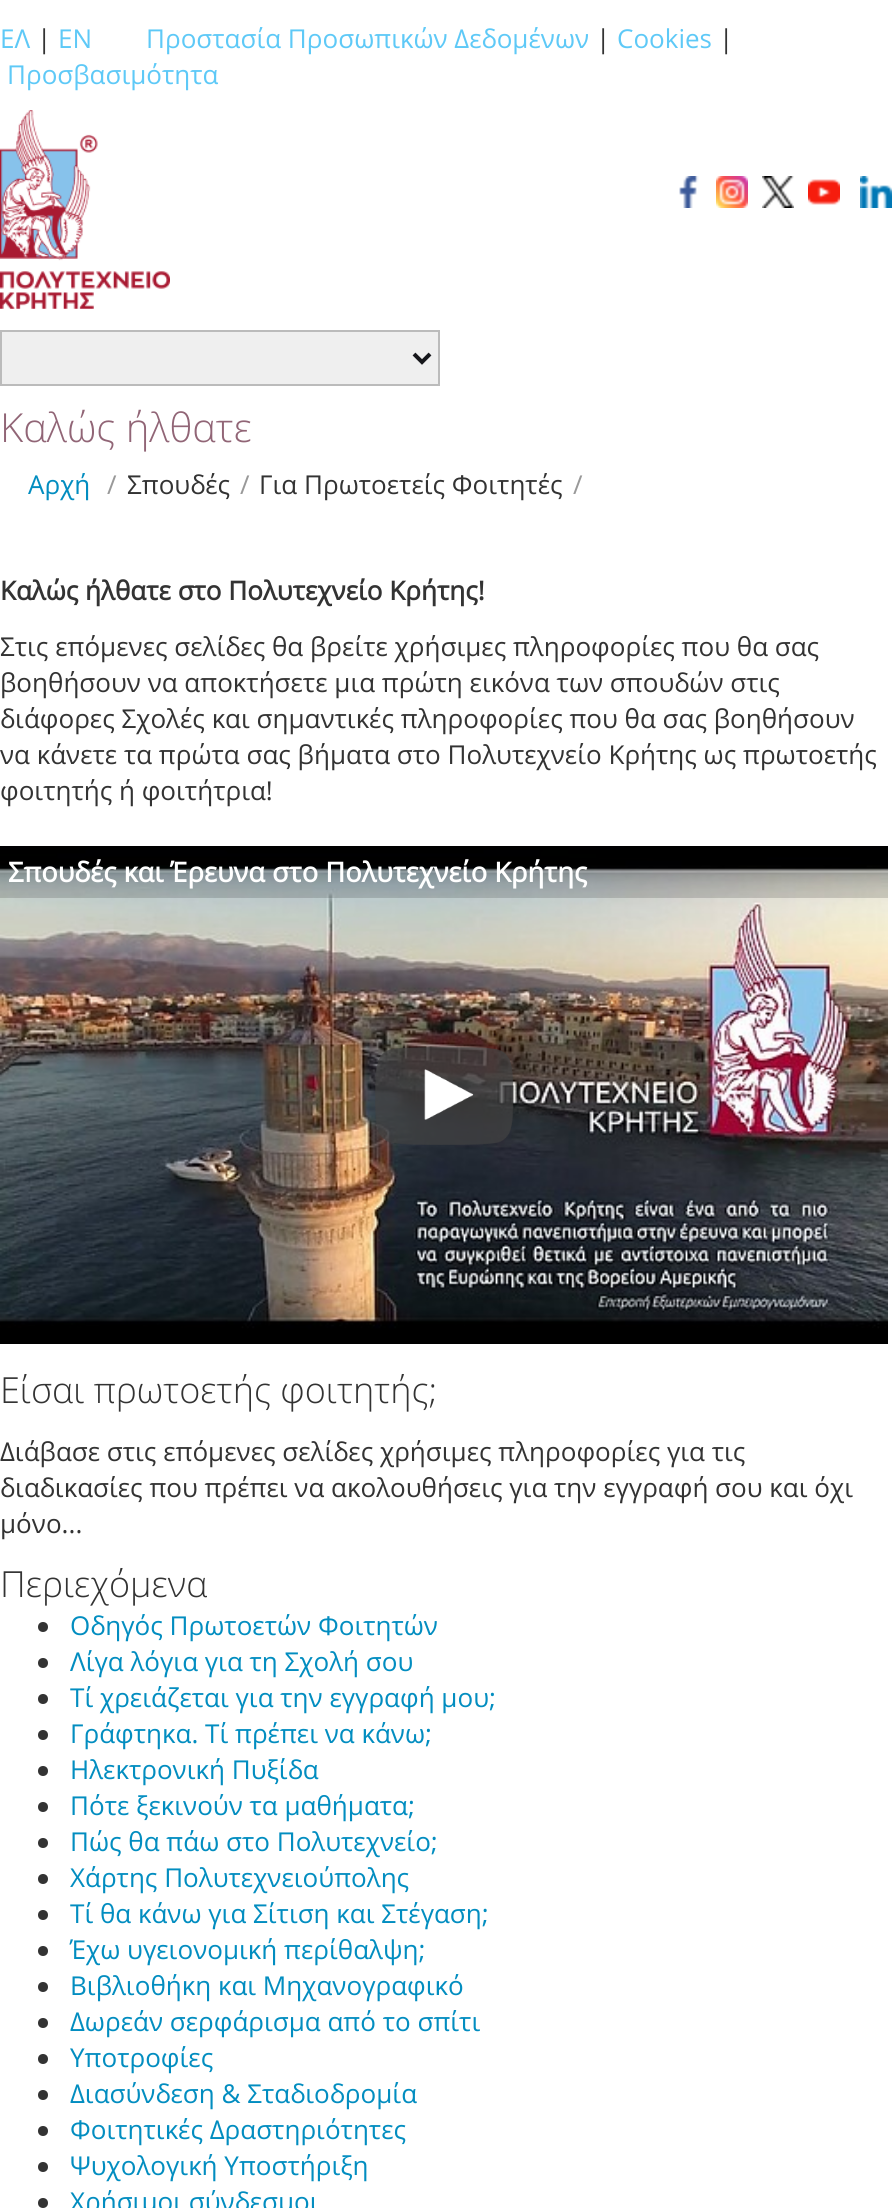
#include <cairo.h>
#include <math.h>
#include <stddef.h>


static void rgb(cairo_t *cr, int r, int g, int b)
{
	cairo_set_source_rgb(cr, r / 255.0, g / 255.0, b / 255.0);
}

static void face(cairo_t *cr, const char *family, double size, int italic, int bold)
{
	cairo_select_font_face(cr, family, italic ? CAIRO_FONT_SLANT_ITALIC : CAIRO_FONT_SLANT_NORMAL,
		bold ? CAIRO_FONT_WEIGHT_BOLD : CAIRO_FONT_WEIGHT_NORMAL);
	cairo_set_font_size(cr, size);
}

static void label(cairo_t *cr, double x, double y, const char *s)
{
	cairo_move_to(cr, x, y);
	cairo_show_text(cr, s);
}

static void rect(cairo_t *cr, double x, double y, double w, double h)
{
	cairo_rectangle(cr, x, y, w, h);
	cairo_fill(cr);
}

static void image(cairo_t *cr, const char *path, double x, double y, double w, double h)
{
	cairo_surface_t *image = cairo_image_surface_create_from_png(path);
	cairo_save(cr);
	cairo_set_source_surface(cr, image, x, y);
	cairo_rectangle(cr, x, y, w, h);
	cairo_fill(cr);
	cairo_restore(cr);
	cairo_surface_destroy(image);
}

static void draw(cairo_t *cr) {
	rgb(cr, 255, 255, 255);
	cairo_paint(cr);
	face(cr, "Open Sans", 26, 0, 0);
	rgb(cr, 94, 201, 247);
	label(cr, 0, 48, "ΕΛ");
	rgb(cr, 51, 51, 51);
	label(cr, 37, 48, "|");
	rgb(cr, 94, 201, 247);
	label(cr, 58, 48, "EN");
	label(cr, 146, 48, "Προστασία Προσωπικών Δεδομένων");
	rgb(cr, 51, 51, 51);
	label(cr, 596, 48, "|");
	rgb(cr, 94, 201, 247);
	label(cr, 617, 48, "Cookies");
	rgb(cr, 51, 51, 51);
	label(cr, 719, 48, "|");
	rgb(cr, 94, 201, 247);
	label(cr, 7, 84, "Προσβασιμότητα");
	image(cr, "image0.png", 0, 110, 170, 199);
	image(cr, "image1.png", 679, 176, 20, 32);
	image(cr, "image2.png", 716, 176, 32, 32);
	image(cr, "image3.png", 762, 176, 32, 32);
	image(cr, "image4.png", 808, 179, 32, 26);
	image(cr, "image5.png", 860, 176, 32, 32);
	rgb(cr, 239, 239, 239);
	cairo_rectangle(cr, 1, 331, 438, 54);
	cairo_fill_preserve(cr);
	rgb(cr, 187, 187, 187);
	cairo_stroke(cr);
	cairo_new_path(cr);
	cairo_move_to(cr, 414, 354);
	cairo_line_to(cr, 422, 362);
	cairo_line_to(cr, 430, 354);
	rgb(cr, 22, 23, 27);
	cairo_set_line_width(cr, 4);
	cairo_stroke(cr);
	face(cr, "Open Sans Light", 40, 0, 0);
	rgb(cr, 145, 101, 118);
	label(cr, 0, 442, "Καλώς ήλθατε");
	face(cr, "Open Sans", 26, 0, 0);
	rgb(cr, 2, 141, 192);
	label(cr, 28, 494, "Αρχή");
	rgb(cr, 153, 153, 153);
	label(cr, 107, 494, "/");
	rgb(cr, 51, 51, 51);
	label(cr, 127, 494, "Σπουδές");
	rgb(cr, 153, 153, 153);
	label(cr, 240, 494, "/");
	rgb(cr, 51, 51, 51);
	label(cr, 259, 494, "Για Πρωτοετείς Φοιτητές");
	rgb(cr, 153, 153, 153);
	label(cr, 573, 494, "/");
	face(cr, "Open Sans", 26, 0, 1);
	rgb(cr, 51, 51, 51);
	label(cr, 0, 600, "Καλώς ήλθατε στο Πολυτεχνείο Κρήτης!");
	face(cr, "Open Sans", 26, 0, 0);
	label(cr, 0, 656, "Στις επόμενες σελίδες θα βρείτε χρήσιμες πληροφορίες που θα σας");
	label(cr, 0, 692, "βοηθήσουν να αποκτήσετε μια πρώτη εικόνα των σπουδών στις");
	label(cr, 0, 728, "διάφορες Σχολές και σημαντικές πληροφορίες που θα σας βοηθήσουν");
	label(cr, 0, 764, "να κάνετε τα πρώτα σας βήματα στο Πολυτεχνείο Κρήτης ως πρωτοετής");
	label(cr, 0, 800, "φοιτητής ή φοιτήτρια!");
	image(cr, "image6.png", 0, 846, 888, 498);
	cairo_set_source_rgba(cr, 0, 0, 0, 0.15);
	rect(cr, 0, 868, 888, 30);
	face(cr, "Open Sans", 27.3, 0, 1);
	rgb(cr, 255, 255, 255);
	label(cr, 8, 882, "Σπουδές και Έρευνα στο Πολυτεχνείο Κρήτης");
	image(cr, "image7.png", 375, 1046, 139, 99);
	face(cr, "Open Sans Light", 36, 0, 0);
	rgb(cr, 51, 51, 51);
	label(cr, 0, 1403, "Είσαι πρωτοετής φοιτητής;");
	face(cr, "Open Sans", 26, 0, 0);
	label(cr, 0, 1461, "Διάβασε στις επόμενες σελίδες χρήσιμες πληροφορίες για τις");
	label(cr, 0, 1497, "διαδικασίες που πρέπει να ακολουθήσεις για την εγγραφή σου και όχι");
	label(cr, 0, 1533, "μόνο...");
	face(cr, "Open Sans Light", 36, 0, 0);
	label(cr, 0, 1597, "Περιεχόμενα");
	cairo_new_path(cr);
	cairo_arc(cr, 43, 1627, 5, 0, 2 * M_PI);
	cairo_fill(cr);
	face(cr, "Open Sans", 26, 0, 0);
	rgb(cr, 2, 141, 192);
	label(cr, 70, 1635, "Οδηγός Πρωτοετών Φοιτητών");
	rgb(cr, 51, 51, 51);
	cairo_new_path(cr);
	cairo_arc(cr, 43, 1663, 5, 0, 2 * M_PI);
	cairo_fill(cr);
	rgb(cr, 2, 141, 192);
	label(cr, 70, 1671, "Λίγα λόγια για τη Σχολή σου");
	rgb(cr, 51, 51, 51);
	cairo_new_path(cr);
	cairo_arc(cr, 43, 1699, 5, 0, 2 * M_PI);
	cairo_fill(cr);
	rgb(cr, 2, 141, 192);
	label(cr, 70, 1707, "Τί χρειάζεται για την εγγραφή μου;");
	rgb(cr, 51, 51, 51);
	cairo_new_path(cr);
	cairo_arc(cr, 43, 1735, 5, 0, 2 * M_PI);
	cairo_fill(cr);
	rgb(cr, 2, 141, 192);
	label(cr, 70, 1743, "Γράφτηκα. Τί πρέπει να κάνω;");
	rgb(cr, 51, 51, 51);
	cairo_new_path(cr);
	cairo_arc(cr, 43, 1771, 5, 0, 2 * M_PI);
	cairo_fill(cr);
	rgb(cr, 2, 141, 192);
	label(cr, 70, 1779, "Ηλεκτρονική Πυξίδα");
	rgb(cr, 51, 51, 51);
	cairo_new_path(cr);
	cairo_arc(cr, 43, 1807, 5, 0, 2 * M_PI);
	cairo_fill(cr);
	rgb(cr, 2, 141, 192);
	label(cr, 70, 1815, "Πότε ξεκινούν τα μαθήματα;");
	rgb(cr, 51, 51, 51);
	cairo_new_path(cr);
	cairo_arc(cr, 43, 1843, 5, 0, 2 * M_PI);
	cairo_fill(cr);
	rgb(cr, 2, 141, 192);
	label(cr, 70, 1851, "Πώς θα πάω στο Πολυτεχνείο;");
	rgb(cr, 51, 51, 51);
	cairo_new_path(cr);
	cairo_arc(cr, 43, 1879, 5, 0, 2 * M_PI);
	cairo_fill(cr);
	rgb(cr, 2, 141, 192);
	label(cr, 70, 1887, "Χάρτης Πολυτεχνειούπολης");
	rgb(cr, 51, 51, 51);
	cairo_new_path(cr);
	cairo_arc(cr, 43, 1915, 5, 0, 2 * M_PI);
	cairo_fill(cr);
	rgb(cr, 2, 141, 192);
	label(cr, 70, 1923, "Τί θα κάνω για Σίτιση και Στέγαση;");
	rgb(cr, 51, 51, 51);
	cairo_new_path(cr);
	cairo_arc(cr, 43, 1951, 5, 0, 2 * M_PI);
	cairo_fill(cr);
	rgb(cr, 2, 141, 192);
	label(cr, 70, 1959, "Έχω υγειονομική περίθαλψη;");
	rgb(cr, 51, 51, 51);
	cairo_new_path(cr);
	cairo_arc(cr, 43, 1987, 5, 0, 2 * M_PI);
	cairo_fill(cr);
	rgb(cr, 2, 141, 192);
	label(cr, 70, 1995, "Βιβλιοθήκη και Μηχανογραφικό");
	rgb(cr, 51, 51, 51);
	cairo_new_path(cr);
	cairo_arc(cr, 43, 2023, 5, 0, 2 * M_PI);
	cairo_fill(cr);
	rgb(cr, 2, 141, 192);
	label(cr, 70, 2031, "Δωρεάν σερφάρισμα από το σπίτι");
	rgb(cr, 51, 51, 51);
	cairo_new_path(cr);
	cairo_arc(cr, 43, 2059, 5, 0, 2 * M_PI);
	cairo_fill(cr);
	rgb(cr, 2, 141, 192);
	label(cr, 70, 2067, "Υποτροφίες");
	rgb(cr, 51, 51, 51);
	cairo_new_path(cr);
	cairo_arc(cr, 43, 2095, 5, 0, 2 * M_PI);
	cairo_fill(cr);
	rgb(cr, 2, 141, 192);
	label(cr, 70, 2103, "Διασύνδεση & Σταδιοδρομία");
	rgb(cr, 51, 51, 51);
	cairo_new_path(cr);
	cairo_arc(cr, 43, 2131, 5, 0, 2 * M_PI);
	cairo_fill(cr);
	rgb(cr, 2, 141, 192);
	label(cr, 70, 2139, "Φοιτητικές Δραστηριότητες");
	rgb(cr, 51, 51, 51);
	cairo_new_path(cr);
	cairo_arc(cr, 43, 2167, 5, 0, 2 * M_PI);
	cairo_fill(cr);
	rgb(cr, 2, 141, 192);
	label(cr, 70, 2175, "Ψυχολογική Υποστήριξη");
	rgb(cr, 51, 51, 51);
	cairo_new_path(cr);
	cairo_arc(cr, 43, 2203, 5, 0, 2 * M_PI);
	cairo_fill(cr);
	rgb(cr, 2, 141, 192);
	label(cr, 70, 2211, "Χρήσιμοι σύνδεσμοι");
}

int main(void) {
	cairo_surface_t *surface = cairo_image_surface_create(CAIRO_FORMAT_RGB24, 892, 2208);
	cairo_t *cr = cairo_create(surface);
	cairo_font_options_t *options = cairo_font_options_create();
	cairo_font_options_set_hint_metrics(options, CAIRO_HINT_METRICS_OFF);
	cairo_font_options_set_hint_style(options, CAIRO_HINT_STYLE_NONE);
	cairo_set_font_options(cr, options);
	cairo_set_miter_limit(cr, 4);
	draw(cr);
	cairo_surface_write_to_png(surface, "render.png");
	cairo_font_options_destroy(options);
	cairo_destroy(cr);
	cairo_surface_destroy(surface);
	return 0;
}
